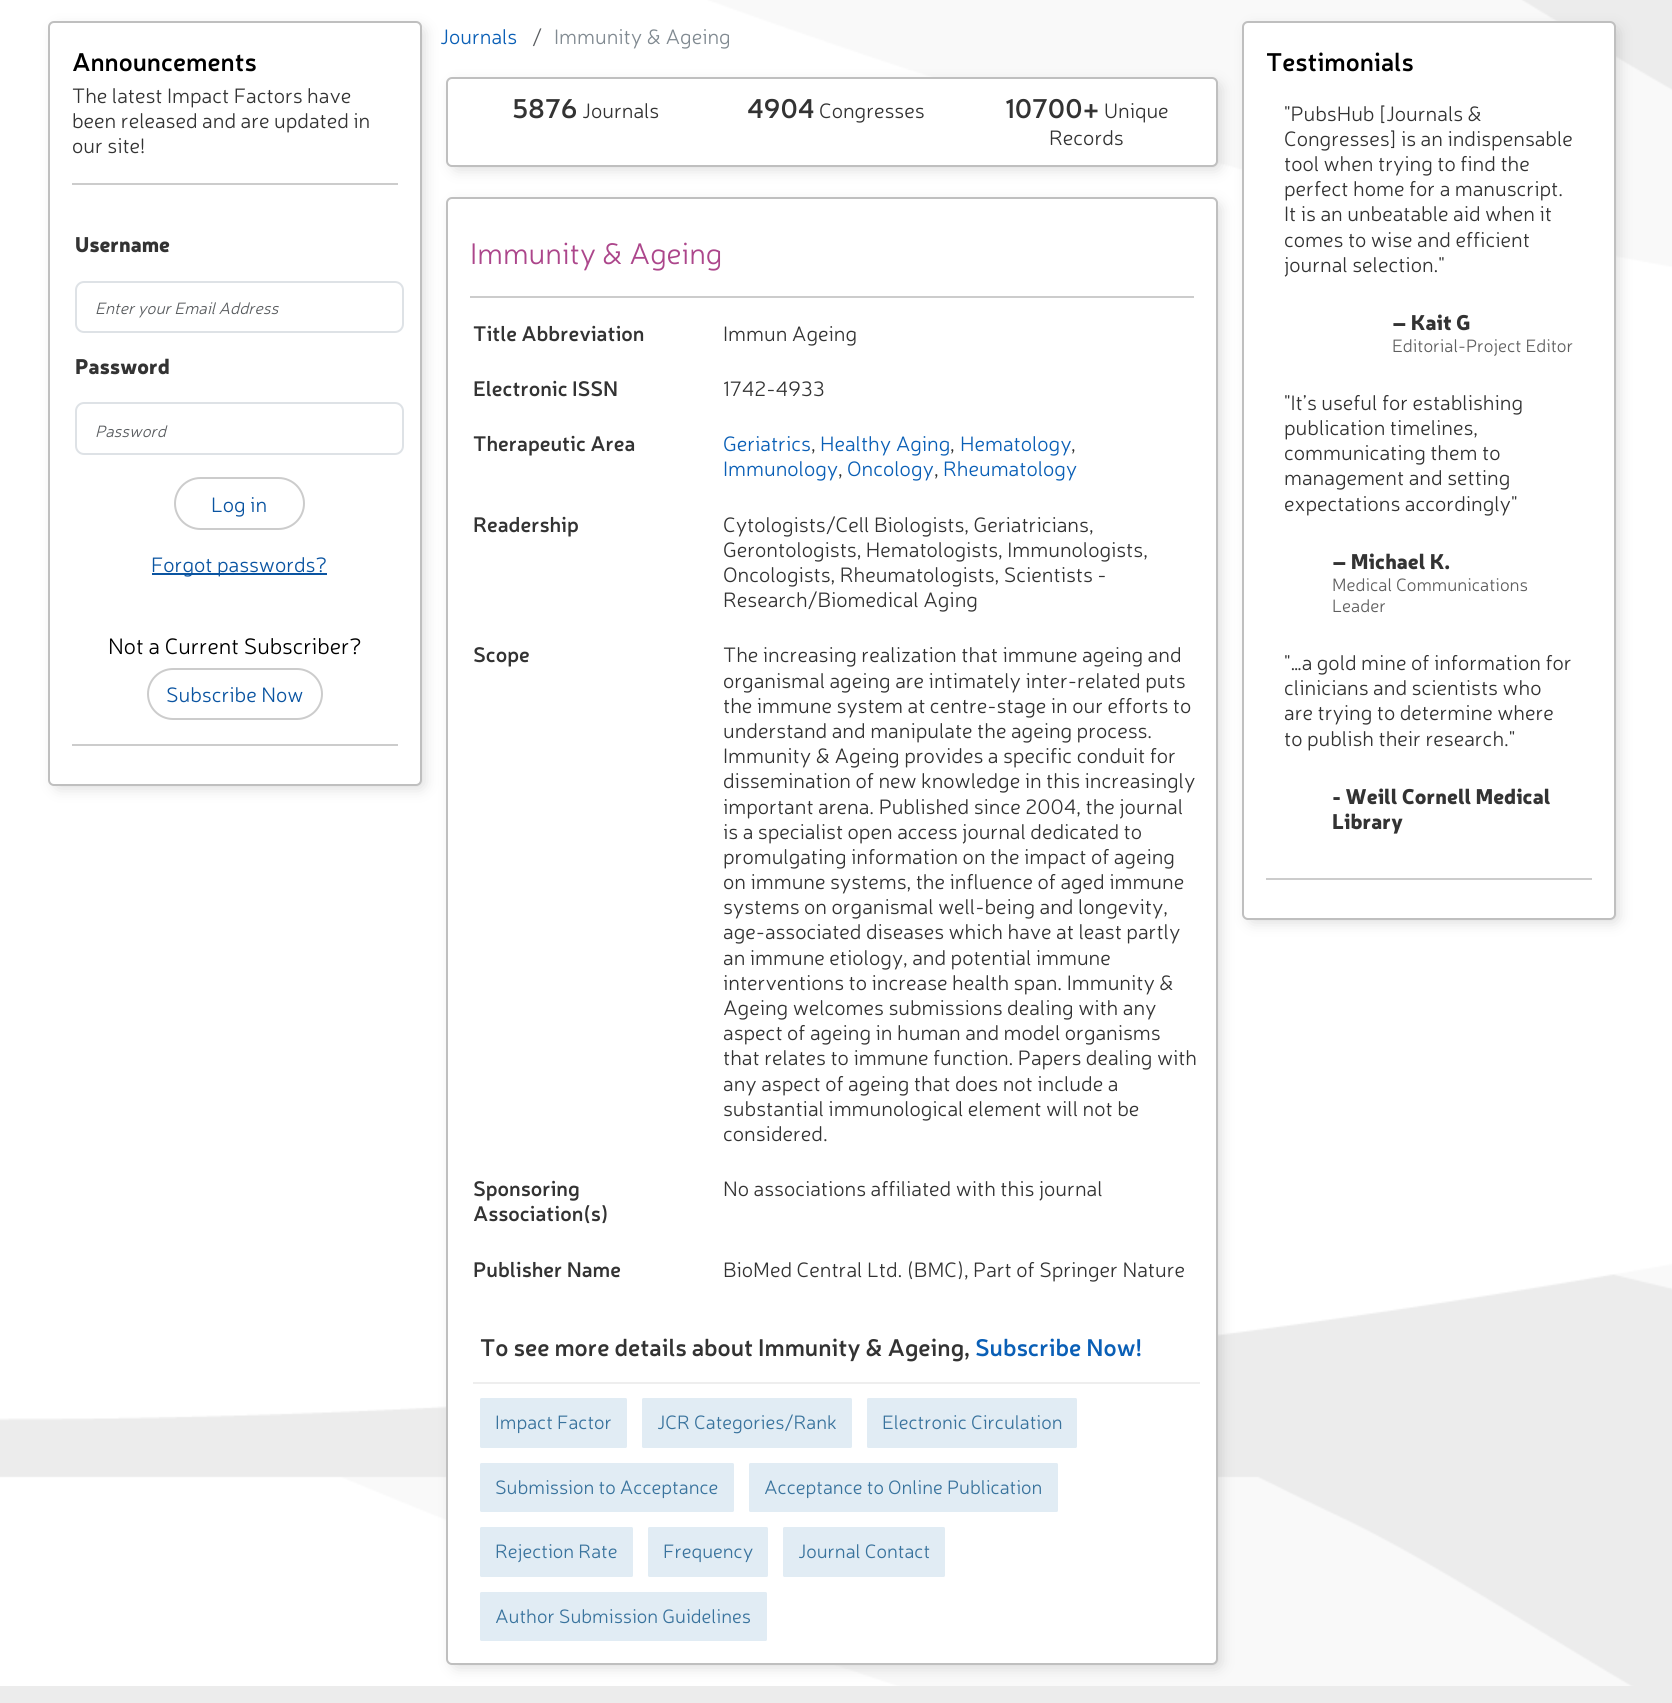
#include <cairo.h>
#include <math.h>
#include <stddef.h>


static void rgb(cairo_t *cr, int r, int g, int b)
{
	cairo_set_source_rgb(cr, r / 255.0, g / 255.0, b / 255.0);
}

static void face(cairo_t *cr, const char *family, double size, int italic, int bold)
{
	cairo_select_font_face(cr, family, italic ? CAIRO_FONT_SLANT_ITALIC : CAIRO_FONT_SLANT_NORMAL,
		bold ? CAIRO_FONT_WEIGHT_BOLD : CAIRO_FONT_WEIGHT_NORMAL);
	cairo_set_font_size(cr, size);
}

static void label(cairo_t *cr, double x, double y, const char *s)
{
	cairo_move_to(cr, x, y);
	cairo_show_text(cr, s);
}

static void rect(cairo_t *cr, double x, double y, double w, double h)
{
	cairo_rectangle(cr, x, y, w, h);
	cairo_fill(cr);
}

static void rrect(cairo_t *cr, double x, double y, double w, double h, double r)
{
	cairo_new_sub_path(cr);
	cairo_arc(cr, x + w - r, y + h - r, r, 0, M_PI / 2);
	cairo_arc(cr, x + r, y + h - r, r, M_PI / 2, M_PI);
	cairo_arc(cr, x + r, y + r, r, M_PI, 1.5 * M_PI);
	cairo_arc(cr, x + w - r, y + r, r, 1.5 * M_PI, 2 * M_PI);
	cairo_close_path(cr);
}

static void soft_shadow(cairo_t *cr, double x, double y, double w, double h, double r, double blur, double alpha)
{
	cairo_push_group_with_content(cr, CAIRO_CONTENT_ALPHA);
	cairo_set_operator(cr, CAIRO_OPERATOR_SOURCE);
	for (int i = 15; i >= -15 && fmin(w, h) + blur * i / 3 > 0; i -= 2) {
		double e = blur * i / 6;
		cairo_set_source_rgba(cr, 0, 0, 0, alpha * erfc((i - 1) / 8.5) / 2);
		rrect(cr, x - e, y - e, w + 2 * e, h + 2 * e, fmax(0, fmin(r + e + blur * .6, fmin(w, h) / 2 + e)));
		cairo_fill(cr);
	}
	cairo_pattern_t *soft = cairo_pop_group(cr);
	cairo_mask(cr, soft);
	cairo_pattern_destroy(soft);
}

static void image(cairo_t *cr, const char *path, double x, double y, double w, double h)
{
	cairo_surface_t *image = cairo_image_surface_create_from_png(path);
	cairo_save(cr);
	cairo_set_source_surface(cr, image, x, y);
	cairo_rectangle(cr, x, y, w, h);
	cairo_fill(cr);
	cairo_restore(cr);
	cairo_surface_destroy(image);
}

static void draw(cairo_t *cr) {
	rgb(cr, 255, 255, 255);
	cairo_paint(cr);
	image(cr, "image0.png", 0, 0, 1672, 1703);
	rgb(cr, 107, 107, 107);
	soft_shadow(cr, 57, 30, 365, 756, 1.5, 8, 0.31);
	rgb(cr, 255, 255, 255);
	rrect(cr, 49, 22, 372, 763, 5);
	cairo_fill_preserve(cr);
	rgb(cr, 191, 191, 191);
	cairo_stroke(cr);
	face(cr, "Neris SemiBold", 25.5, 0, 0);
	rgb(cr, 0, 0, 0);
	label(cr, 72, 71, "Announcements");
	face(cr, "Neris Light", 21, 0, 0);
	rgb(cr, 51, 51, 51);
	label(cr, 72, 103, "The latest Impact Factors have");
	label(cr, 72, 128, "been released and are updated in");
	label(cr, 72, 153, "our site!");
	rgb(cr, 204, 204, 204);
	rect(cr, 72, 183, 326, 2);
	face(cr, "Neris Black", 21, 0, 0);
	rgb(cr, 51, 51, 51);
	label(cr, 75, 252, "Username");
	rrect(cr, 76, 282, 327, 50, 8);
	rgb(cr, 222, 226, 230);
	cairo_stroke(cr);
	face(cr, "Neris Light", 16.5, 1, 0);
	rgb(cr, 89, 92, 95);
	label(cr, 95, 314, "Enter your Email Address");
	face(cr, "Neris Black", 21, 0, 0);
	rgb(cr, 51, 51, 51);
	label(cr, 75, 374, "Password");
	rrect(cr, 76, 403, 327, 51, 8);
	rgb(cr, 222, 226, 230);
	cairo_stroke(cr);
	face(cr, "Neris Light", 16.5, 1, 0);
	rgb(cr, 89, 92, 95);
	label(cr, 95, 437, "Password");
	rrect(cr, 175, 478, 129, 51, 25.5);
	rgb(cr, 204, 204, 204);
	cairo_stroke(cr);
	face(cr, "Neris Light", 21, 0, 0);
	rgb(cr, 10, 84, 161);
	label(cr, 211, 512, "Log in");
	rect(cr, 152, 573, 175, 2);
	label(cr, 151, 572, "Forgot passwords?");
	face(cr, "Neris Light", 22.5, 0, 0);
	rgb(cr, 0, 0, 0);
	label(cr, 108, 654, "Not a Current Subscriber?");
	rrect(cr, 148, 669, 174, 50, 25);
	rgb(cr, 204, 204, 204);
	cairo_stroke(cr);
	face(cr, "Neris Light", 21, 0, 0);
	rgb(cr, 10, 84, 161);
	label(cr, 166, 702, "Subscribe Now");
	rgb(cr, 204, 204, 204);
	rect(cr, 72, 744, 326, 2);
	rgb(cr, 10, 95, 182);
	label(cr, 440, 44, "Journals");
	rgb(cr, 89, 92, 95);
	label(cr, 532, 44, "/");
	rgb(cr, 129, 138, 145);
	label(cr, 554, 44, "Immunity & Ageing");
	rgb(cr, 107, 107, 107);
	soft_shadow(cr, 455, 86, 763, 81, 1.5, 8, 0.31);
	rgb(cr, 255, 255, 255);
	rrect(cr, 447, 78, 770, 88, 5);
	cairo_fill_preserve(cr);
	rgb(cr, 191, 191, 191);
	cairo_stroke(cr);
	face(cr, "Neris SemiBold", 27, 0, 0);
	rgb(cr, 51, 51, 51);
	label(cr, 512, 118, "5876");
	face(cr, "Neris Light", 21, 0, 0);
	label(cr, 582, 118, "Journals");
	face(cr, "Neris SemiBold", 27, 0, 0);
	label(cr, 747, 118, "4904");
	face(cr, "Neris Light", 21, 0, 0);
	label(cr, 819, 118, "Congresses");
	face(cr, "Neris SemiBold", 27, 0, 0);
	label(cr, 1005, 118, "10700+");
	face(cr, "Neris Light", 21, 0, 0);
	label(cr, 1104, 118, "Unique");
	label(cr, 1049, 145, "Records");
	rgb(cr, 107, 107, 107);
	soft_shadow(cr, 455, 206, 763, 1459, 1.5, 8, 0.31);
	rgb(cr, 255, 255, 255);
	rrect(cr, 447, 198, 770, 1466, 5);
	cairo_fill_preserve(cr);
	rgb(cr, 191, 191, 191);
	cairo_stroke(cr);
	face(cr, "Neris Light", 30, 0, 0);
	rgb(cr, 172, 70, 139);
	label(cr, 470, 264, "Immunity & Ageing");
	rgb(cr, 204, 204, 204);
	rect(cr, 470, 296, 724, 2);
	face(cr, "Neris SemiBold", 21, 0, 0);
	rgb(cr, 51, 51, 51);
	label(cr, 473, 341, "Title Abbreviation");
	face(cr, "Neris Light", 21, 0, 0);
	label(cr, 723, 341, "Immun Ageing");
	face(cr, "Neris SemiBold", 21, 0, 0);
	label(cr, 473, 396, "Electronic ISSN");
	face(cr, "Neris Light", 21, 0, 0);
	label(cr, 723, 396, "1742-4933");
	face(cr, "Neris SemiBold", 21, 0, 0);
	label(cr, 473, 451, "Therapeutic Area");
	face(cr, "Neris Light", 21, 0, 0);
	rgb(cr, 10, 95, 182);
	label(cr, 723, 451, "Geriatrics");
	rgb(cr, 51, 51, 51);
	label(cr, 811, 451, ",");
	rgb(cr, 10, 95, 182);
	label(cr, 820, 451, "Healthy Aging");
	rgb(cr, 51, 51, 51);
	label(cr, 950, 451, ",");
	rgb(cr, 10, 95, 182);
	label(cr, 960, 451, "Hematology");
	rgb(cr, 51, 51, 51);
	label(cr, 1071, 451, ",");
	rgb(cr, 10, 95, 182);
	label(cr, 723, 476, "Immunology");
	rgb(cr, 51, 51, 51);
	label(cr, 838, 476, ",");
	rgb(cr, 10, 95, 182);
	label(cr, 847, 476, "Oncology");
	rgb(cr, 51, 51, 51);
	label(cr, 934, 476, ",");
	rgb(cr, 10, 95, 182);
	label(cr, 943, 476, "Rheumatology");
	face(cr, "Neris SemiBold", 21, 0, 0);
	rgb(cr, 51, 51, 51);
	label(cr, 473, 532, "Readership");
	face(cr, "Neris Light", 21, 0, 0);
	label(cr, 723, 532, "Cytologists/Cell Biologists, Geriatricians,");
	label(cr, 723, 557, "Gerontologists, Hematologists, Immunologists,");
	label(cr, 723, 582, "Oncologists, Rheumatologists, Scientists -");
	label(cr, 723, 607, "Research/Biomedical Aging");
	face(cr, "Neris SemiBold", 21, 0, 0);
	label(cr, 473, 662, "Scope");
	face(cr, "Neris Light", 21, 0, 0);
	label(cr, 723, 662, "The increasing realization that immune ageing and");
	label(cr, 723, 688, "organismal ageing are intimately inter-related puts");
	label(cr, 723, 713, "the immune system at centre-stage in our efforts to");
	label(cr, 723, 738, "understand and manipulate the ageing process.");
	label(cr, 723, 763, "Immunity & Ageing provides a specific conduit for");
	label(cr, 723, 788, "dissemination of new knowledge in this increasingly");
	label(cr, 723, 814, "important arena. Published since 2004, the journal");
	label(cr, 723, 839, "is a specialist open access journal dedicated to");
	label(cr, 723, 864, "promulgating information on the impact of ageing");
	label(cr, 723, 889, "on immune systems, the influence of aged immune");
	label(cr, 723, 914, "systems on organismal well-being and longevity,");
	label(cr, 723, 939, "age-associated diseases which have at least partly");
	label(cr, 723, 965, "an immune etiology, and potential immune");
	label(cr, 723, 990, "interventions to increase health span. Immunity &");
	label(cr, 723, 1015, "Ageing welcomes submissions dealing with any");
	label(cr, 723, 1040, "aspect of ageing in human and model organisms");
	label(cr, 723, 1065, "that relates to immune function. Papers dealing with");
	label(cr, 723, 1091, "any aspect of ageing that does not include a");
	label(cr, 723, 1116, "substantial immunological element will not be");
	label(cr, 723, 1141, "considered.");
	face(cr, "Neris SemiBold", 21, 0, 0);
	label(cr, 473, 1196, "Sponsoring");
	label(cr, 473, 1221, "Association(s)");
	face(cr, "Neris Light", 21, 0, 0);
	label(cr, 723, 1196, "No associations affiliated with this journal");
	face(cr, "Neris SemiBold", 21, 0, 0);
	label(cr, 473, 1277, "Publisher Name");
	face(cr, "Neris Light", 21, 0, 0);
	label(cr, 723, 1277, "BioMed Central Ltd. (BMC), Part of Springer Nature");
	rgb(cr, 238, 238, 238);
	rect(cr, 473, 1382, 727, 2);
	face(cr, "Neris SemiBold", 24, 0, 0);
	rgb(cr, 51, 51, 51);
	label(cr, 480, 1356, "To see more details about Immunity & Ageing,");
	rgb(cr, 10, 95, 182);
	label(cr, 975, 1356, "Subscribe Now!");
	rgb(cr, 225, 236, 244);
	rrect(cr, 480, 1398, 147, 50, 1.5);
	cairo_fill(cr);
	face(cr, "Neris Light", 19.5, 0, 0);
	rgb(cr, 57, 115, 157);
	label(cr, 495, 1429, "Impact Factor");
	rgb(cr, 225, 236, 244);
	rrect(cr, 642, 1398, 210, 50, 1.5);
	cairo_fill(cr);
	rgb(cr, 57, 115, 157);
	label(cr, 657, 1429, "JCR Categories/Rank");
	rgb(cr, 225, 236, 244);
	rrect(cr, 867, 1398, 210, 50, 1.5);
	cairo_fill(cr);
	rgb(cr, 57, 115, 157);
	label(cr, 882, 1429, "Electronic Circulation");
	rgb(cr, 225, 236, 244);
	rrect(cr, 480, 1463, 254, 49, 1.5);
	cairo_fill(cr);
	rgb(cr, 57, 115, 157);
	label(cr, 495, 1494, "Submission to Acceptance");
	rgb(cr, 225, 236, 244);
	rrect(cr, 749, 1463, 309, 49, 1.5);
	cairo_fill(cr);
	rgb(cr, 57, 115, 157);
	label(cr, 764, 1494, "Acceptance to Online Publication");
	rgb(cr, 225, 236, 244);
	rrect(cr, 480, 1527, 153, 50, 1.5);
	cairo_fill(cr);
	rgb(cr, 57, 115, 157);
	label(cr, 495, 1558, "Rejection Rate");
	rgb(cr, 225, 236, 244);
	rrect(cr, 648, 1527, 120, 50, 1.5);
	cairo_fill(cr);
	rgb(cr, 57, 115, 157);
	label(cr, 663, 1558, "Frequency");
	rgb(cr, 225, 236, 244);
	rrect(cr, 783, 1527, 162, 50, 1.5);
	cairo_fill(cr);
	rgb(cr, 57, 115, 157);
	label(cr, 798, 1558, "Journal Contact");
	rgb(cr, 225, 236, 244);
	rrect(cr, 480, 1592, 287, 49, 1.5);
	cairo_fill(cr);
	rgb(cr, 57, 115, 157);
	label(cr, 495, 1623, "Author Submission Guidelines");
	rgb(cr, 107, 107, 107);
	soft_shadow(cr, 1251, 30, 365, 890, 1.5, 8, 0.31);
	rgb(cr, 255, 255, 255);
	rrect(cr, 1243, 22, 372, 897, 5);
	cairo_fill_preserve(cr);
	rgb(cr, 191, 191, 191);
	cairo_stroke(cr);
	face(cr, "Neris SemiBold", 25.5, 0, 0);
	rgb(cr, 0, 0, 0);
	label(cr, 1266, 71, "Testimonials");
	face(cr, "Neris Light", 21, 0, 0);
	rgb(cr, 51, 51, 51);
	label(cr, 1284, 121, "\"PubsHub [Journals &");
	label(cr, 1284, 146, "Congresses] is an indispensable");
	label(cr, 1284, 171, "tool when trying to find the");
	label(cr, 1284, 196, "perfect home for a manuscript.");
	label(cr, 1284, 221, "It is an unbeatable aid when it");
	label(cr, 1284, 247, "comes to wise and efficient");
	label(cr, 1284, 272, "journal selection.\"");
	face(cr, "Neris Black", 21, 0, 0);
	label(cr, 1392, 330, "– Kait G");
	face(cr, "Neris Light", 18, 0, 0);
	rgb(cr, 95, 95, 95);
	label(cr, 1392, 352, "Editorial-Project Editor");
	face(cr, "Neris Light", 21, 0, 0);
	rgb(cr, 51, 51, 51);
	label(cr, 1284, 410, "\"It’s useful for establishing");
	label(cr, 1284, 435, "publication timelines,");
	label(cr, 1284, 460, "communicating them to");
	label(cr, 1284, 485, "management and setting");
	label(cr, 1284, 511, "expectations accordingly\"");
	face(cr, "Neris Black", 21, 0, 0);
	label(cr, 1332, 569, "– Michael K.");
	face(cr, "Neris Light", 18, 0, 0);
	rgb(cr, 95, 95, 95);
	label(cr, 1332, 591, "Medical Communications");
	label(cr, 1332, 612, "Leader");
	face(cr, "Neris Light", 21, 0, 0);
	rgb(cr, 51, 51, 51);
	label(cr, 1284, 670, "\"…a gold mine of information for");
	label(cr, 1284, 695, "clinicians and scientists who");
	label(cr, 1284, 720, "are trying to determine where");
	label(cr, 1284, 746, "to publish their research.\"");
	face(cr, "Neris Black", 21, 0, 0);
	label(cr, 1332, 804, "- Weill Cornell Medical");
	label(cr, 1332, 829, "Library");
	rgb(cr, 204, 204, 204);
	rect(cr, 1266, 878, 326, 2);
	rgb(cr, 236, 236, 236);
	rect(cr, 0, 1686, 1661, 17);
}

int main(void) {
	cairo_surface_t *surface = cairo_image_surface_create(CAIRO_FORMAT_RGB24, 1672, 1703);
	cairo_t *cr = cairo_create(surface);
	cairo_font_options_t *options = cairo_font_options_create();
	cairo_font_options_set_hint_metrics(options, CAIRO_HINT_METRICS_OFF);
	cairo_font_options_set_hint_style(options, CAIRO_HINT_STYLE_NONE);
	cairo_set_font_options(cr, options);
	cairo_set_miter_limit(cr, 4);
	draw(cr);
	cairo_surface_write_to_png(surface, "render.png");
	cairo_font_options_destroy(options);
	cairo_destroy(cr);
	cairo_surface_destroy(surface);
	return 0;
}
